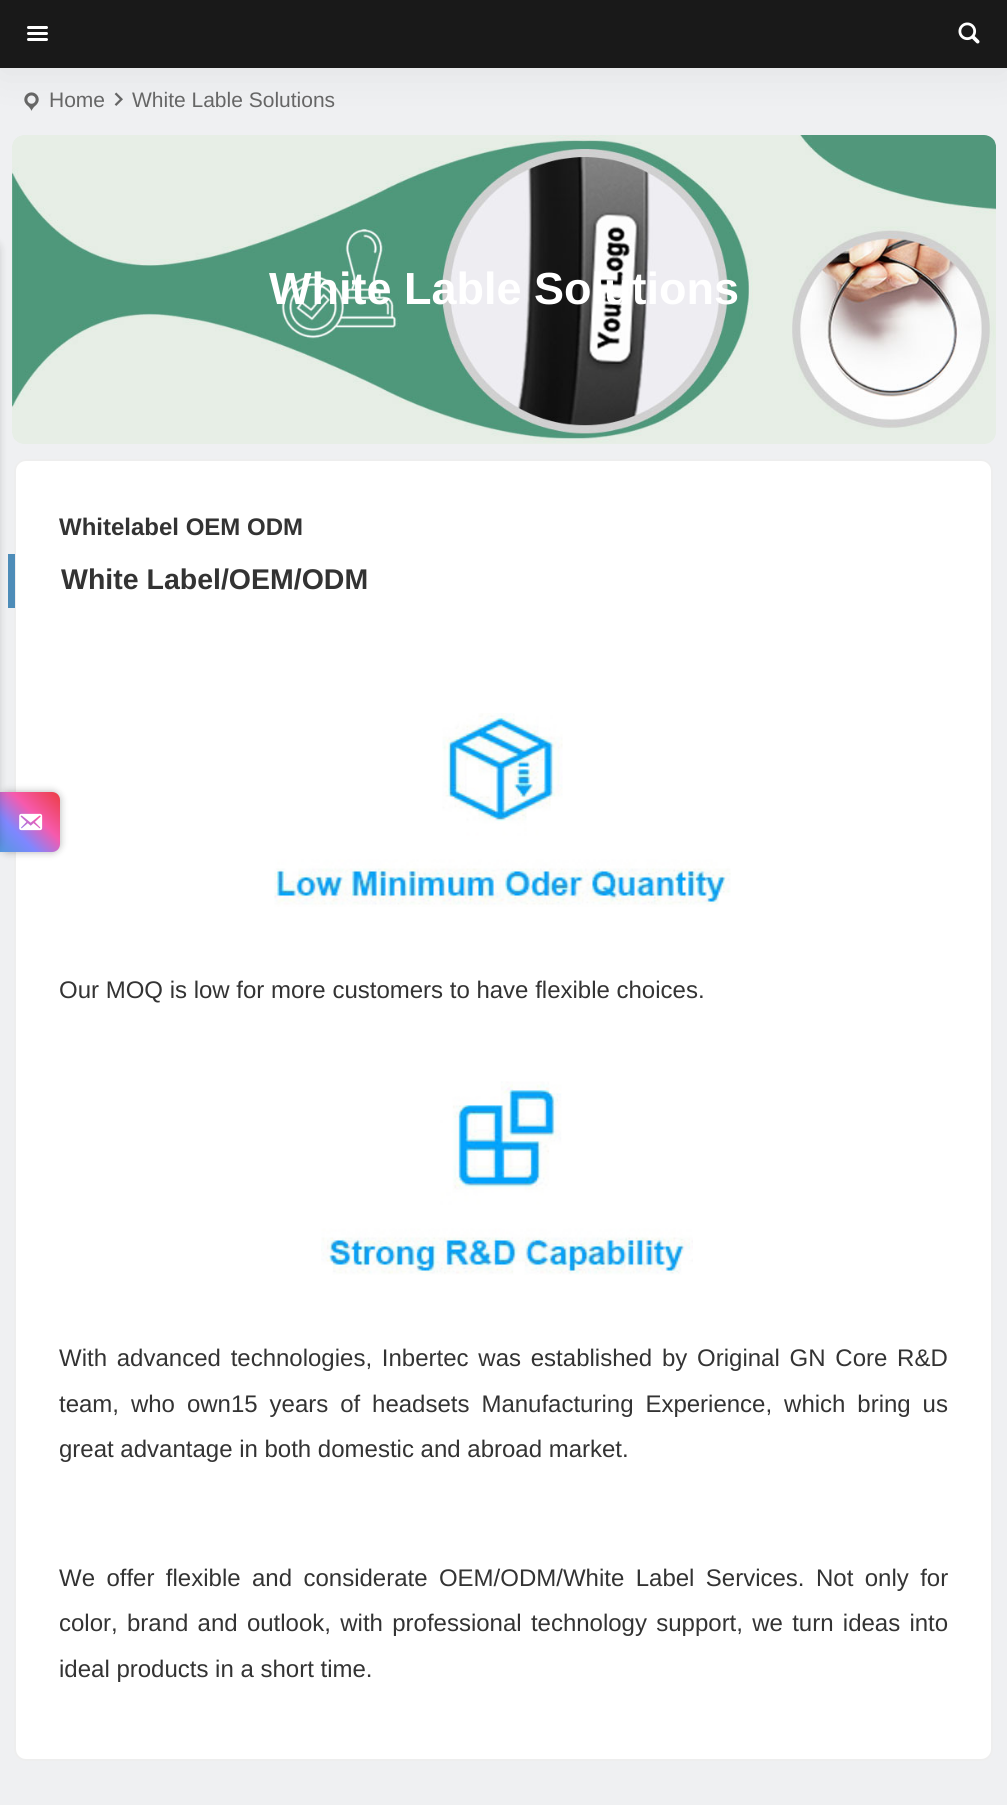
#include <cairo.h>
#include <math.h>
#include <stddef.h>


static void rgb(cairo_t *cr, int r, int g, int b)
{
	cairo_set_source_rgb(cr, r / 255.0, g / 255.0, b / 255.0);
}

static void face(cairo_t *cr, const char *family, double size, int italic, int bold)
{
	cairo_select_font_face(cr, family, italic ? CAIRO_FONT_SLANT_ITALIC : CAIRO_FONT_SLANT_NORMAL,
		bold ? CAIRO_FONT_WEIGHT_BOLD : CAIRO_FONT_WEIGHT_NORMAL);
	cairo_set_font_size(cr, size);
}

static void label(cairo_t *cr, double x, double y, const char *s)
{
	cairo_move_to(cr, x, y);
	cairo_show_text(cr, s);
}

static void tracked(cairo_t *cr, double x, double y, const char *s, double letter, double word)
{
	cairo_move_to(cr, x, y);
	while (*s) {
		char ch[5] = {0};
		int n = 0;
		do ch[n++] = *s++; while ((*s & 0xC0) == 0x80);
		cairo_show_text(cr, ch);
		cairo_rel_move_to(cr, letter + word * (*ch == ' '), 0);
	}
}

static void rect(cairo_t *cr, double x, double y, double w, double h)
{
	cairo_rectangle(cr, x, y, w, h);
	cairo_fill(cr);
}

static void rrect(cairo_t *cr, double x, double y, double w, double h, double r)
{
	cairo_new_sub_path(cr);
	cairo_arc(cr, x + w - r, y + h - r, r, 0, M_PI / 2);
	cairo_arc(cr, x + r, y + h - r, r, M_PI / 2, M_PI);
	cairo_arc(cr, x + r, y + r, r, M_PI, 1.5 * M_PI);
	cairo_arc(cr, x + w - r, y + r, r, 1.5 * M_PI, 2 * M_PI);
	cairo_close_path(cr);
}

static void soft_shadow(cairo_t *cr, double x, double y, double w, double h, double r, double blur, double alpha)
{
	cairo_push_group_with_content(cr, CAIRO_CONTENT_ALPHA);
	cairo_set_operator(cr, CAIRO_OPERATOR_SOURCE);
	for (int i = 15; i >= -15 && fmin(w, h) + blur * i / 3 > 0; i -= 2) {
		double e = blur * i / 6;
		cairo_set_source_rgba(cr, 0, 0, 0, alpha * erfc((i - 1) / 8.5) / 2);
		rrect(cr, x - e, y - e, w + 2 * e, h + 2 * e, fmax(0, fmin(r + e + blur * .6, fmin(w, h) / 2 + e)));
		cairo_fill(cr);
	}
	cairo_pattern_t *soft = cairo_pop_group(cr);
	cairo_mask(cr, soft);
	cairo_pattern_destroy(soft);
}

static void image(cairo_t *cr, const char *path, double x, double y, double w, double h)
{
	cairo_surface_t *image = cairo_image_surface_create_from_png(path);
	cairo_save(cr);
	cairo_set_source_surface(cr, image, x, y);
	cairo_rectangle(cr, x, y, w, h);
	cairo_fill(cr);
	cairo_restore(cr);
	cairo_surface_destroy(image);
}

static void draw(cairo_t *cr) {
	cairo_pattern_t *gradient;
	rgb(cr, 239, 240, 242);
	cairo_paint(cr);
	image(cr, "image1.png", 24, 92, 15, 19);
	image(cr, "image2.png", 114, 92, 9, 14);
	image(cr, "image4.png", 12, 135, 984, 309);
	rgb(cr, 0, 0, 0);
	soft_shadow(cr, 0, 5, 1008, 67, 0, 22.5, 0.06);
	rgb(cr, 25, 25, 25);
	rect(cr, 0, 0, 1007, 68);
	rgb(cr, 255, 255, 255);
	rrect(cr, 27, 32, 21, 3, 1.5);
	cairo_fill(cr);
	rrect(cr, 27, 26, 21, 3, 1.5);
	cairo_fill(cr);
	rrect(cr, 27, 38, 21, 3, 1.5);
	cairo_fill(cr);
	image(cr, "image0.png", 958, 22, 22, 22);
	face(cr, "Liberation Sans", 21, 0, 0);
	rgb(cr, 102, 102, 102);
	label(cr, 49, 107, "Home");
	label(cr, 132, 107, "White Lable Solutions");
	rgb(cr, 255, 255, 255);
	rrect(cr, 14, 459, 979, 1302, 12);
	cairo_fill(cr);
	rrect(cr, 15, 460, 977, 1300, 11);
	cairo_set_source_rgba(cr, 0, 0, 0, 0.07);
	cairo_stroke(cr);
	rgb(cr, 0, 0, 0);
	soft_shadow(cr, 0, 792, 60, 60, 8, 4, 0.3);
	gradient = cairo_pattern_create_linear(0, 852, 60, 792);
	cairo_pattern_add_color_stop_rgba(gradient, 0, 0.333, 0.596, 0.871, 1);
	cairo_pattern_add_color_stop_rgba(gradient, 0.3, 0.498, 0.529, 1, 1);
	cairo_pattern_add_color_stop_rgba(gradient, 0.6, 0.965, 0.353, 0.678, 1);
	cairo_pattern_add_color_stop_rgba(gradient, 1, 0.925, 0.239, 0.263, 1);
	cairo_set_source(cr, gradient);
	cairo_pattern_destroy(gradient);
	cairo_new_path(cr);
	cairo_move_to(cr, 0, 792);
	cairo_line_to(cr, 52, 792);
	cairo_curve_to(cr, 56.5, 792, 60, 795.5, 60, 800);
	cairo_line_to(cr, 60, 844);
	cairo_curve_to(cr, 60, 848.5, 56.5, 852, 52, 852);
	cairo_line_to(cr, 0, 852);
	cairo_close_path(cr);
	cairo_fill(cr);
	rgb(cr, 77, 140, 184);
	rect(cr, 8, 554, 7, 54);
	rgb(cr, 0, 0, 0);
	soft_shadow(cr, -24, 240, 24, 612, 12, 4, 0.15);
	image(cr, "image3.png", 19, 813, 24, 18);
	face(cr, "Liberation Sans", 45, 0, 1);
	rgb(cr, 255, 255, 255);
	label(cr, 269, 304, "White Lable Solutions");
	face(cr, "Liberation Sans", 24, 0, 1);
	rgb(cr, 51, 51, 51);
	label(cr, 59, 535, "Whitelabel OEM ODM");
	face(cr, "Liberation Sans", 28.5, 0, 1);
	label(cr, 61, 589, "White Label/OEM/ODM");
	image(cr, "image5.png", 274, 713, 457, 194);
	face(cr, "Liberation Sans", 24, 0, 0);
	label(cr, 59, 998, "Our MOQ is low for more customers to have flexible choices.");
	image(cr, "image6.png", 321, 1081, 372, 194);
	tracked(cr, 59, 1366, "With advanced technologies, Inbertec was established by Original GN Core R&D", 0, 3.1);
	tracked(cr, 59, 1412, "team, who own15 years of headsets Manufacturing Experience, which bring us", 0, 5.25);
	label(cr, 59, 1457, "great advantage in both domestic and abroad market.");
	tracked(cr, 59, 1586, "We offer flexible and considerate OEM/ODM/White Label Services. Not only for", 0, 4.75);
	tracked(cr, 59, 1631, "color, brand and outlook, with professional technology support, we turn ideas into", 0, 2.6);
	label(cr, 59, 1677, "ideal products in a short time.");
}

int main(void) {
	cairo_surface_t *surface = cairo_image_surface_create(CAIRO_FORMAT_RGB24, 1007, 1805);
	cairo_t *cr = cairo_create(surface);
	cairo_font_options_t *options = cairo_font_options_create();
	cairo_font_options_set_hint_metrics(options, CAIRO_HINT_METRICS_OFF);
	cairo_font_options_set_hint_style(options, CAIRO_HINT_STYLE_NONE);
	cairo_set_font_options(cr, options);
	cairo_set_miter_limit(cr, 4);
	draw(cr);
	cairo_surface_write_to_png(surface, "render.png");
	cairo_font_options_destroy(options);
	cairo_destroy(cr);
	cairo_surface_destroy(surface);
	return 0;
}
